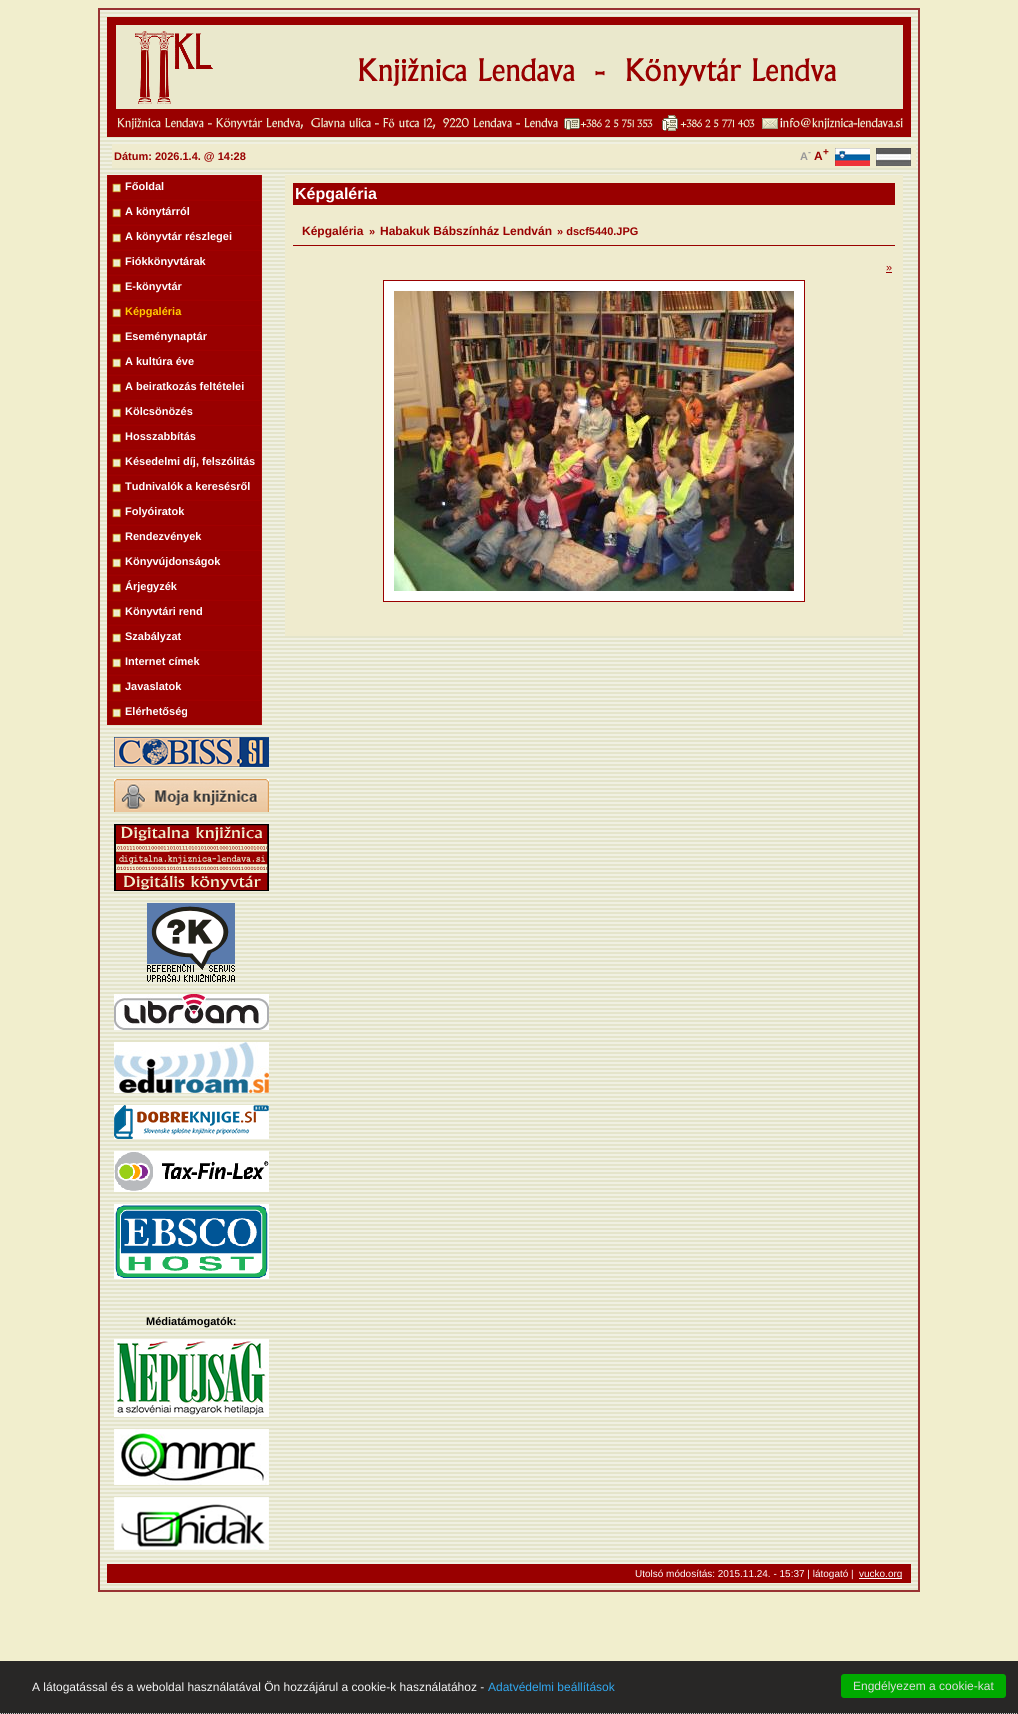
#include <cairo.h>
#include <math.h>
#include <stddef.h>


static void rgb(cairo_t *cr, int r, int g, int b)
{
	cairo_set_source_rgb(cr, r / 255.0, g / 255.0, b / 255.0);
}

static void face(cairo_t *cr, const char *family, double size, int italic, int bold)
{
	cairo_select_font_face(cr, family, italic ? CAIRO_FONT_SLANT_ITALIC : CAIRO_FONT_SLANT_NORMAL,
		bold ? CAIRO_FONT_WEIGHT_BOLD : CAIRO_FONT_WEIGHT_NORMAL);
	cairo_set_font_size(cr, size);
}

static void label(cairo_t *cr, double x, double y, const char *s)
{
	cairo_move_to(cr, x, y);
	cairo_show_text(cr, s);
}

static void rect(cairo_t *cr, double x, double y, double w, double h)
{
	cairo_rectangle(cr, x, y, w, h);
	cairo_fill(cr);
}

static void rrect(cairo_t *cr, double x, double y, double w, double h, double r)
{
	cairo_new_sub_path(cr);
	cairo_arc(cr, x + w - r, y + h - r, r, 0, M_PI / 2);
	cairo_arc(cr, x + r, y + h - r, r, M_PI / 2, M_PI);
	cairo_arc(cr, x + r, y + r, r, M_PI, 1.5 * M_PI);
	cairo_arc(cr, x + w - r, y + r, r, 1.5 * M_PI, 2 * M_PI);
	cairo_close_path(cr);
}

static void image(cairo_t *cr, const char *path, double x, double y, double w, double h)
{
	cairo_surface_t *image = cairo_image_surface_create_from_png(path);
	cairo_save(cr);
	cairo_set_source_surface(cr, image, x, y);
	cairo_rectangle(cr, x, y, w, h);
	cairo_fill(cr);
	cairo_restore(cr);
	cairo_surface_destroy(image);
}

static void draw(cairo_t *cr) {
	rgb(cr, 241, 238, 205);
	cairo_paint(cr);
	image(cr, "image0.png", 100, 10, 818, 1580);
	cairo_rectangle(cr, 99, 9, 820, 1582);
	rgb(cr, 153, 51, 51);
	cairo_stroke(cr);
	image(cr, "image1.png", 107, 17, 804, 120);
	rgb(cr, 239, 235, 206);
	rect(cr, 112, 144, 804, 24);
	face(cr, "Liberation Sans", 11, 0, 1);
	rgb(cr, 153, 0, 0);
	label(cr, 114, 160, "Dátum: 2026.1.4. @ 14:28");
	rgb(cr, 153, 153, 153);
	label(cr, 800, 160, "A");
	face(cr, "Liberation Sans", 9, 0, 1);
	label(cr, 808, 155, "-");
	face(cr, "Liberation Sans", 12, 0, 1);
	rgb(cr, 153, 0, 0);
	label(cr, 814, 160, "A");
	face(cr, "Liberation Sans", 10, 0, 1);
	label(cr, 823, 155, "+");
	image(cr, "image2.png", 835, 148, 35, 18);
	image(cr, "image3.png", 876, 148, 35, 18);
	image(cr, "image4.png", 107, 175, 155, 25);
	face(cr, "Liberation Sans", 11, 0, 1);
	rgb(cr, 255, 255, 255);
	label(cr, 125, 190, "Főoldal");
	image(cr, "image5.png", 107, 200, 155, 25);
	label(cr, 125, 215, "A könytárról");
	image(cr, "image6.png", 107, 225, 155, 25);
	label(cr, 125, 240, "A könyvtár részlegei");
	image(cr, "image7.png", 107, 250, 155, 25);
	label(cr, 125, 265, "Fiókkönyvtárak");
	image(cr, "image4.png", 107, 275, 155, 25);
	label(cr, 125, 290, "E-könyvtár");
	image(cr, "image5.png", 107, 300, 155, 25);
	rgb(cr, 255, 204, 0);
	label(cr, 125, 315, "Képgaléria");
	image(cr, "image6.png", 107, 325, 155, 25);
	rgb(cr, 255, 255, 255);
	label(cr, 125, 340, "Eseménynaptár");
	image(cr, "image7.png", 107, 350, 155, 25);
	label(cr, 125, 365, "A kultúra éve");
	image(cr, "image4.png", 107, 375, 155, 25);
	label(cr, 125, 390, "A beiratkozás feltételei");
	image(cr, "image5.png", 107, 400, 155, 25);
	label(cr, 125, 415, "Kölcsönözés");
	image(cr, "image6.png", 107, 425, 155, 25);
	label(cr, 125, 440, "Hosszabbítás");
	image(cr, "image7.png", 107, 450, 155, 25);
	label(cr, 125, 465, "Késedelmi díj, felszólitás");
	image(cr, "image4.png", 107, 475, 155, 25);
	label(cr, 125, 490, "Tudnivalók a keresésről");
	image(cr, "image5.png", 107, 500, 155, 25);
	label(cr, 125, 515, "Folyóiratok");
	image(cr, "image6.png", 107, 525, 155, 25);
	label(cr, 125, 540, "Rendezvények");
	image(cr, "image7.png", 107, 550, 155, 25);
	label(cr, 125, 565, "Könyvújdonságok");
	image(cr, "image4.png", 107, 575, 155, 25);
	label(cr, 125, 590, "Árjegyzék");
	image(cr, "image5.png", 107, 600, 155, 25);
	label(cr, 125, 615, "Könyvtári rend");
	image(cr, "image6.png", 107, 625, 155, 25);
	label(cr, 125, 640, "Szabályzat");
	image(cr, "image7.png", 107, 650, 155, 25);
	label(cr, 125, 665, "Internet címek");
	image(cr, "image4.png", 107, 675, 155, 25);
	label(cr, 125, 690, "Javaslatok");
	image(cr, "image5.png", 107, 700, 155, 25);
	label(cr, 125, 715, "Elérhetőség");
	image(cr, "image8.png", 114, 737, 155, 30);
	image(cr, "image9.png", 114, 779, 155, 33);
	image(cr, "image10.png", 114, 824, 155, 67);
	image(cr, "image11.png", 147, 903, 88, 79);
	image(cr, "image12.png", 114, 994, 155, 36);
	image(cr, "image13.png", 114, 1042, 155, 51);
	image(cr, "image14.png", 114, 1105, 155, 34);
	image(cr, "image15.png", 114, 1151, 155, 41);
	image(cr, "image16.png", 114, 1204, 155, 75);
	rgb(cr, 0, 0, 0);
	label(cr, 146, 1325, "Médiatámogatók:");
	image(cr, "image17.png", 114, 1339, 155, 78);
	image(cr, "image18.png", 114, 1429, 155, 56);
	image(cr, "image19.png", 114, 1497, 155, 53);
	rgb(cr, 239, 235, 206);
	rect(cr, 285, 175, 618, 461);
	rgb(cr, 153, 0, 0);
	rect(cr, 293, 183, 602, 22);
	face(cr, "Liberation Sans", 16, 0, 1);
	rgb(cr, 255, 255, 255);
	label(cr, 295, 199, "Képgaléria");
	rgb(cr, 153, 0, 0);
	rect(cr, 293, 245, 602, 1);
	face(cr, "Liberation Sans", 12, 0, 1);
	label(cr, 302, 235, "Képgaléria");
	face(cr, "Liberation Sans", 11, 0, 1);
	label(cr, 369, 235, "»");
	face(cr, "Liberation Sans", 12, 0, 1);
	label(cr, 380, 235, "Habakuk Bábszínház Lendván");
	face(cr, "Liberation Sans", 11, 0, 1);
	label(cr, 557, 235, "» dscf5440.JPG");
	face(cr, "Liberation Sans", 11, 0, 0);
	label(cr, 886, 271, "»");
	rect(cr, 886, 272, 6, 1);
	rgb(cr, 255, 255, 255);
	cairo_rectangle(cr, 383.5, 280.5, 421, 321);
	cairo_fill_preserve(cr);
	rgb(cr, 153, 0, 0);
	cairo_set_line_width(cr, 1);
	cairo_stroke(cr);
	image(cr, "image20.png", 394, 291, 400, 300);
	rect(cr, 107, 1564, 804, 19);
	face(cr, "Liberation Sans", 10, 0, 0);
	rgb(cr, 255, 255, 255);
	label(cr, 635, 1577, "Utolsó módosítás: 2015.11.24. - 15:37 | látogató |");
	rect(cr, 859, 1578, 43, 1);
	label(cr, 859, 1577, "vucko.org");
	rgb(cr, 40, 39, 38);
	rect(cr, 0, 1661, 1018, 53);
	cairo_new_path(cr);
	cairo_move_to(cr, 0, 1713.5);
	cairo_line_to(cr, 1018, 1713.5);
	rgb(cr, 204, 204, 204);
	cairo_set_dash(cr, (double[]){1, 1}, 2, 0);
	cairo_stroke(cr);
	face(cr, "Liberation Sans", 12, 0, 0);
	rgb(cr, 245, 245, 245);
	label(cr, 32, 1691, "A látogatással és a weboldal használatával Ön hozzájárul a cookie-k használatához -");
	rgb(cr, 49, 168, 240);
	label(cr, 488, 1691, "Adatvédelmi beállítások");
	rgb(cr, 0, 170, 0);
	rrect(cr, 841, 1674, 165, 24, 3);
	cairo_fill(cr);
	rgb(cr, 221, 221, 221);
	label(cr, 853, 1690, "Engdélyezem a cookie-kat");
}

int main(void) {
	cairo_surface_t *surface = cairo_image_surface_create(CAIRO_FORMAT_RGB24, 1018, 1714);
	cairo_t *cr = cairo_create(surface);
	cairo_font_options_t *options = cairo_font_options_create();
	cairo_font_options_set_hint_metrics(options, CAIRO_HINT_METRICS_OFF);
	cairo_font_options_set_hint_style(options, CAIRO_HINT_STYLE_NONE);
	cairo_set_font_options(cr, options);
	cairo_set_miter_limit(cr, 4);
	draw(cr);
	cairo_surface_write_to_png(surface, "render.png");
	cairo_font_options_destroy(options);
	cairo_destroy(cr);
	cairo_surface_destroy(surface);
	return 0;
}
